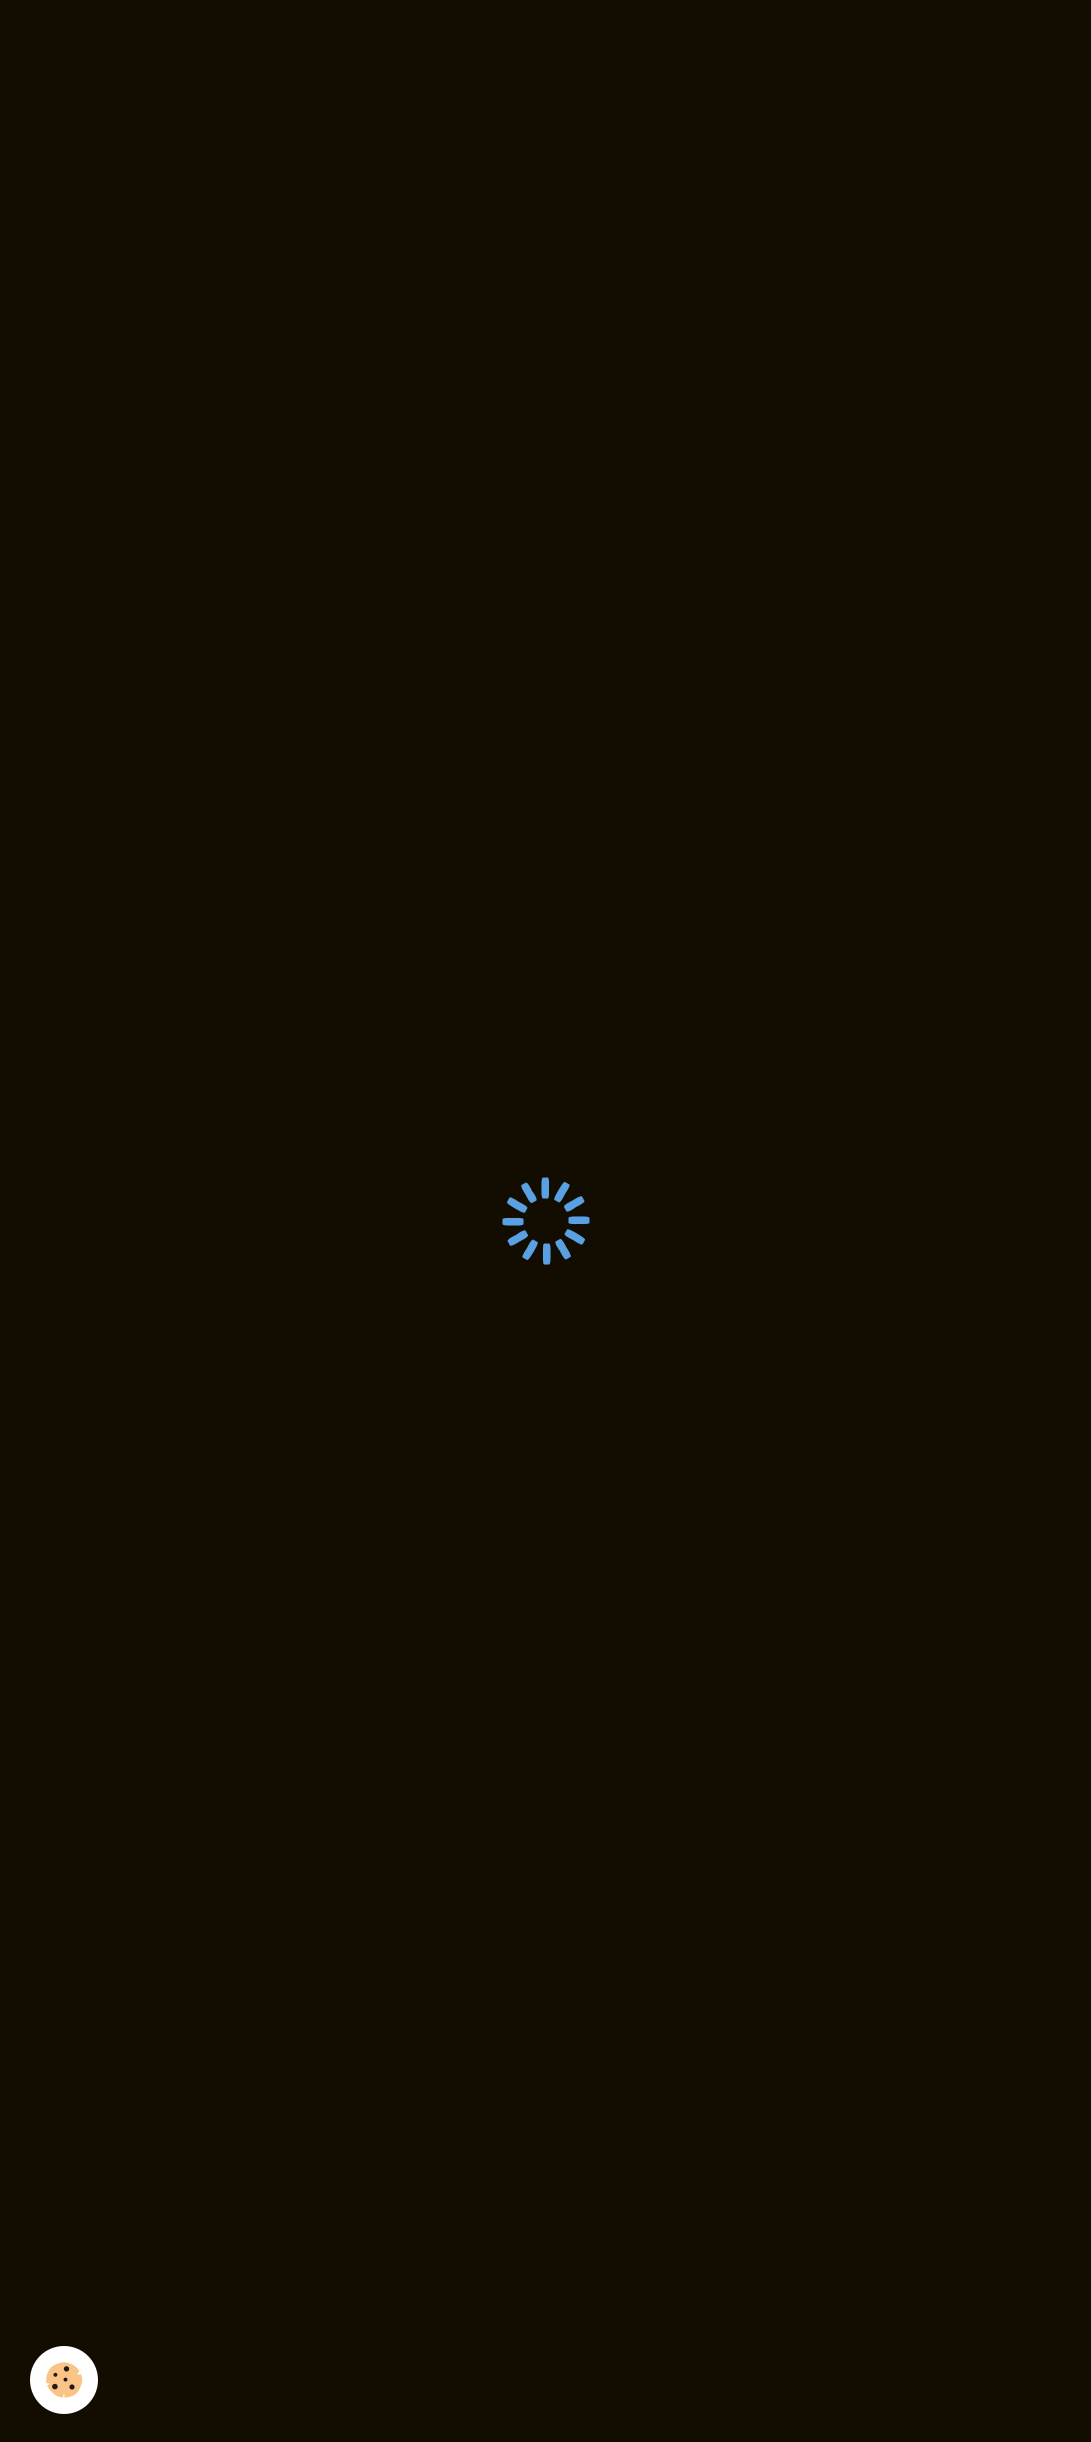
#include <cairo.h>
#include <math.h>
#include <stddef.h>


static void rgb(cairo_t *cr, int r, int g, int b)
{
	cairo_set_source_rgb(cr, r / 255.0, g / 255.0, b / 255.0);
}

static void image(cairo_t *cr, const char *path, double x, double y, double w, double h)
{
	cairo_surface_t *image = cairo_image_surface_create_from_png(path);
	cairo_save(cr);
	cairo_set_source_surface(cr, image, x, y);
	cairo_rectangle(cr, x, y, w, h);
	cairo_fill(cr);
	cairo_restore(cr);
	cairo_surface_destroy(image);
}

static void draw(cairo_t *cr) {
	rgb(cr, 19, 13, 1);
	cairo_paint(cr);
	rgb(cr, 89, 161, 227);
	cairo_new_path(cr);
	cairo_move_to(cr, 543, 1177.5);
	cairo_line_to(cr, 548, 1177.5);
	cairo_curve_to(cr, 549.5, 1178.5, 549, 1186.5, 549, 1188);
	cairo_curve_to(cr, 549, 1189.5, 549.5, 1197.5, 548, 1198.5);
	cairo_line_to(cr, 543, 1198.5);
	cairo_curve_to(cr, 541, 1198.5, 541.5, 1189, 541.5, 1188);
	cairo_curve_to(cr, 541.5, 1187, 541, 1177.5, 543, 1177.5);
	cairo_close_path(cr);
	cairo_move_to(cr, 565, 1182);
	cairo_line_to(cr, 569.5, 1184.5);
	cairo_curve_to(cr, 570.5, 1186, 566, 1192.5, 565, 1194);
	cairo_curve_to(cr, 564.5, 1195, 561, 1202.5, 559, 1202.5);
	cairo_line_to(cr, 554.5, 1200);
	cairo_curve_to(cr, 553, 1199, 558, 1191, 558.5, 1190);
	cairo_curve_to(cr, 559, 1189.5, 563.5, 1181, 565, 1182);
	cairo_close_path(cr);
	cairo_fill(cr);
	cairo_new_path(cr);
	cairo_move_to(cr, 582, 1196.5);
	cairo_line_to(cr, 584.5, 1201);
	cairo_curve_to(cr, 584.5, 1203, 577.5, 1206.5, 576, 1207);
	cairo_curve_to(cr, 575, 1208, 568.5, 1212.5, 566.5, 1211.5);
	cairo_line_to(cr, 564, 1207);
	cairo_curve_to(cr, 563, 1205, 571.5, 1201, 572.5, 1200.5);
	cairo_curve_to(cr, 573, 1200, 581, 1195, 582, 1196.5);
	cairo_close_path(cr);
	cairo_move_to(cr, 589.5, 1218);
	cairo_line_to(cr, 589.5, 1223);
	cairo_curve_to(cr, 588.5, 1224.5, 580.5, 1224, 579, 1224);
	cairo_curve_to(cr, 577.5, 1224, 569.5, 1224.5, 568.5, 1223);
	cairo_line_to(cr, 568.5, 1218);
	cairo_curve_to(cr, 568.5, 1216, 578, 1216.5, 579, 1216.5);
	cairo_curve_to(cr, 580, 1216.5, 589.5, 1216, 589.5, 1218);
	cairo_close_path(cr);
	cairo_move_to(cr, 585, 1240);
	cairo_line_to(cr, 582.5, 1244.5);
	cairo_curve_to(cr, 581, 1245.5, 574.5, 1241, 573, 1240);
	cairo_curve_to(cr, 572, 1239.5, 564.5, 1236, 564.5, 1234);
	cairo_line_to(cr, 567, 1229.5);
	cairo_curve_to(cr, 568, 1228, 576, 1233, 577, 1233.5);
	cairo_curve_to(cr, 577.5, 1234, 586, 1238.5, 585, 1240);
	cairo_close_path(cr);
	cairo_fill(cr);
	cairo_new_path(cr);
	cairo_move_to(cr, 570.5, 1257);
	cairo_line_to(cr, 566, 1259.5);
	cairo_curve_to(cr, 564, 1259.5, 560.5, 1252.5, 560, 1251);
	cairo_curve_to(cr, 559, 1250, 554.5, 1243.5, 555.5, 1241.5);
	cairo_line_to(cr, 560, 1239);
	cairo_curve_to(cr, 562, 1238, 566, 1246.5, 566.5, 1247.5);
	cairo_curve_to(cr, 567, 1248, 572, 1256, 570.5, 1257);
	cairo_close_path(cr);
	cairo_move_to(cr, 549, 1264.5);
	cairo_line_to(cr, 544, 1264.5);
	cairo_curve_to(cr, 542.5, 1263.5, 543, 1255.5, 543, 1254);
	cairo_curve_to(cr, 543, 1252.5, 542.5, 1244.5, 544, 1243.5);
	cairo_line_to(cr, 549, 1243.5);
	cairo_curve_to(cr, 551, 1243.5, 550.5, 1253, 550.5, 1254);
	cairo_curve_to(cr, 550.5, 1255, 551, 1264.5, 549, 1264.5);
	cairo_close_path(cr);
	cairo_move_to(cr, 527, 1260);
	cairo_line_to(cr, 522.5, 1257.5);
	cairo_curve_to(cr, 521.5, 1256, 526, 1249.5, 527, 1248);
	cairo_curve_to(cr, 527.5, 1247, 531, 1239.5, 533, 1239.5);
	cairo_line_to(cr, 537.5, 1242);
	cairo_curve_to(cr, 539, 1243, 534, 1251, 533.5, 1252);
	cairo_curve_to(cr, 533, 1252.5, 528.5, 1261, 527, 1260);
	cairo_close_path(cr);
	cairo_fill(cr);
	cairo_new_path(cr);
	cairo_move_to(cr, 510, 1245.5);
	cairo_line_to(cr, 507.5, 1241);
	cairo_curve_to(cr, 507.5, 1239, 514.5, 1235.5, 516, 1235);
	cairo_curve_to(cr, 517, 1234, 523.5, 1229.5, 525.5, 1230.5);
	cairo_line_to(cr, 528, 1235);
	cairo_curve_to(cr, 529, 1237, 520.5, 1241, 519.5, 1241.5);
	cairo_curve_to(cr, 519, 1242, 511, 1247, 510, 1245.5);
	cairo_close_path(cr);
	cairo_move_to(cr, 502.5, 1224);
	cairo_line_to(cr, 502.5, 1219);
	cairo_curve_to(cr, 503.5, 1217.5, 511.5, 1218, 513, 1218);
	cairo_curve_to(cr, 514.5, 1218, 522.5, 1217.5, 523.5, 1219);
	cairo_line_to(cr, 523.5, 1224);
	cairo_curve_to(cr, 523.5, 1226, 514, 1225.5, 513, 1225.5);
	cairo_curve_to(cr, 512, 1225.5, 502.5, 1226, 502.5, 1224);
	cairo_close_path(cr);
	cairo_move_to(cr, 507, 1202);
	cairo_line_to(cr, 509.5, 1197.5);
	cairo_curve_to(cr, 511, 1196.5, 517.5, 1201, 519, 1202);
	cairo_curve_to(cr, 520, 1202.5, 527.5, 1206, 527.5, 1208);
	cairo_line_to(cr, 525, 1212.5);
	cairo_curve_to(cr, 524, 1214, 516, 1209, 515, 1208.5);
	cairo_curve_to(cr, 514.5, 1208, 506, 1203.5, 507, 1202);
	cairo_close_path(cr);
	cairo_fill(cr);
	cairo_new_path(cr);
	cairo_move_to(cr, 521.5, 1185);
	cairo_line_to(cr, 526, 1182.5);
	cairo_curve_to(cr, 528, 1182.5, 531.5, 1189.5, 532, 1191);
	cairo_curve_to(cr, 533, 1192, 537.5, 1198.5, 536.5, 1200.5);
	cairo_line_to(cr, 532, 1203);
	cairo_curve_to(cr, 530, 1204, 526, 1195.5, 525.5, 1194.5);
	cairo_curve_to(cr, 525, 1194, 520, 1186, 521.5, 1185);
	cairo_close_path(cr);
	cairo_fill(cr);
	rgb(cr, 255, 255, 255);
	cairo_arc(cr, 64, 2380, 34, 0, 2 * M_PI);
	cairo_fill(cr);
	image(cr, "image0.png", 46, 2362, 37, 36);
}

int main(void) {
	cairo_surface_t *surface = cairo_image_surface_create(CAIRO_FORMAT_RGB24, 1091, 2442);
	cairo_t *cr = cairo_create(surface);
	cairo_font_options_t *options = cairo_font_options_create();
	cairo_font_options_set_hint_metrics(options, CAIRO_HINT_METRICS_OFF);
	cairo_font_options_set_hint_style(options, CAIRO_HINT_STYLE_NONE);
	cairo_set_font_options(cr, options);
	cairo_set_miter_limit(cr, 4);
	draw(cr);
	cairo_surface_write_to_png(surface, "render.png");
	cairo_font_options_destroy(options);
	cairo_destroy(cr);
	cairo_surface_destroy(surface);
	return 0;
}
